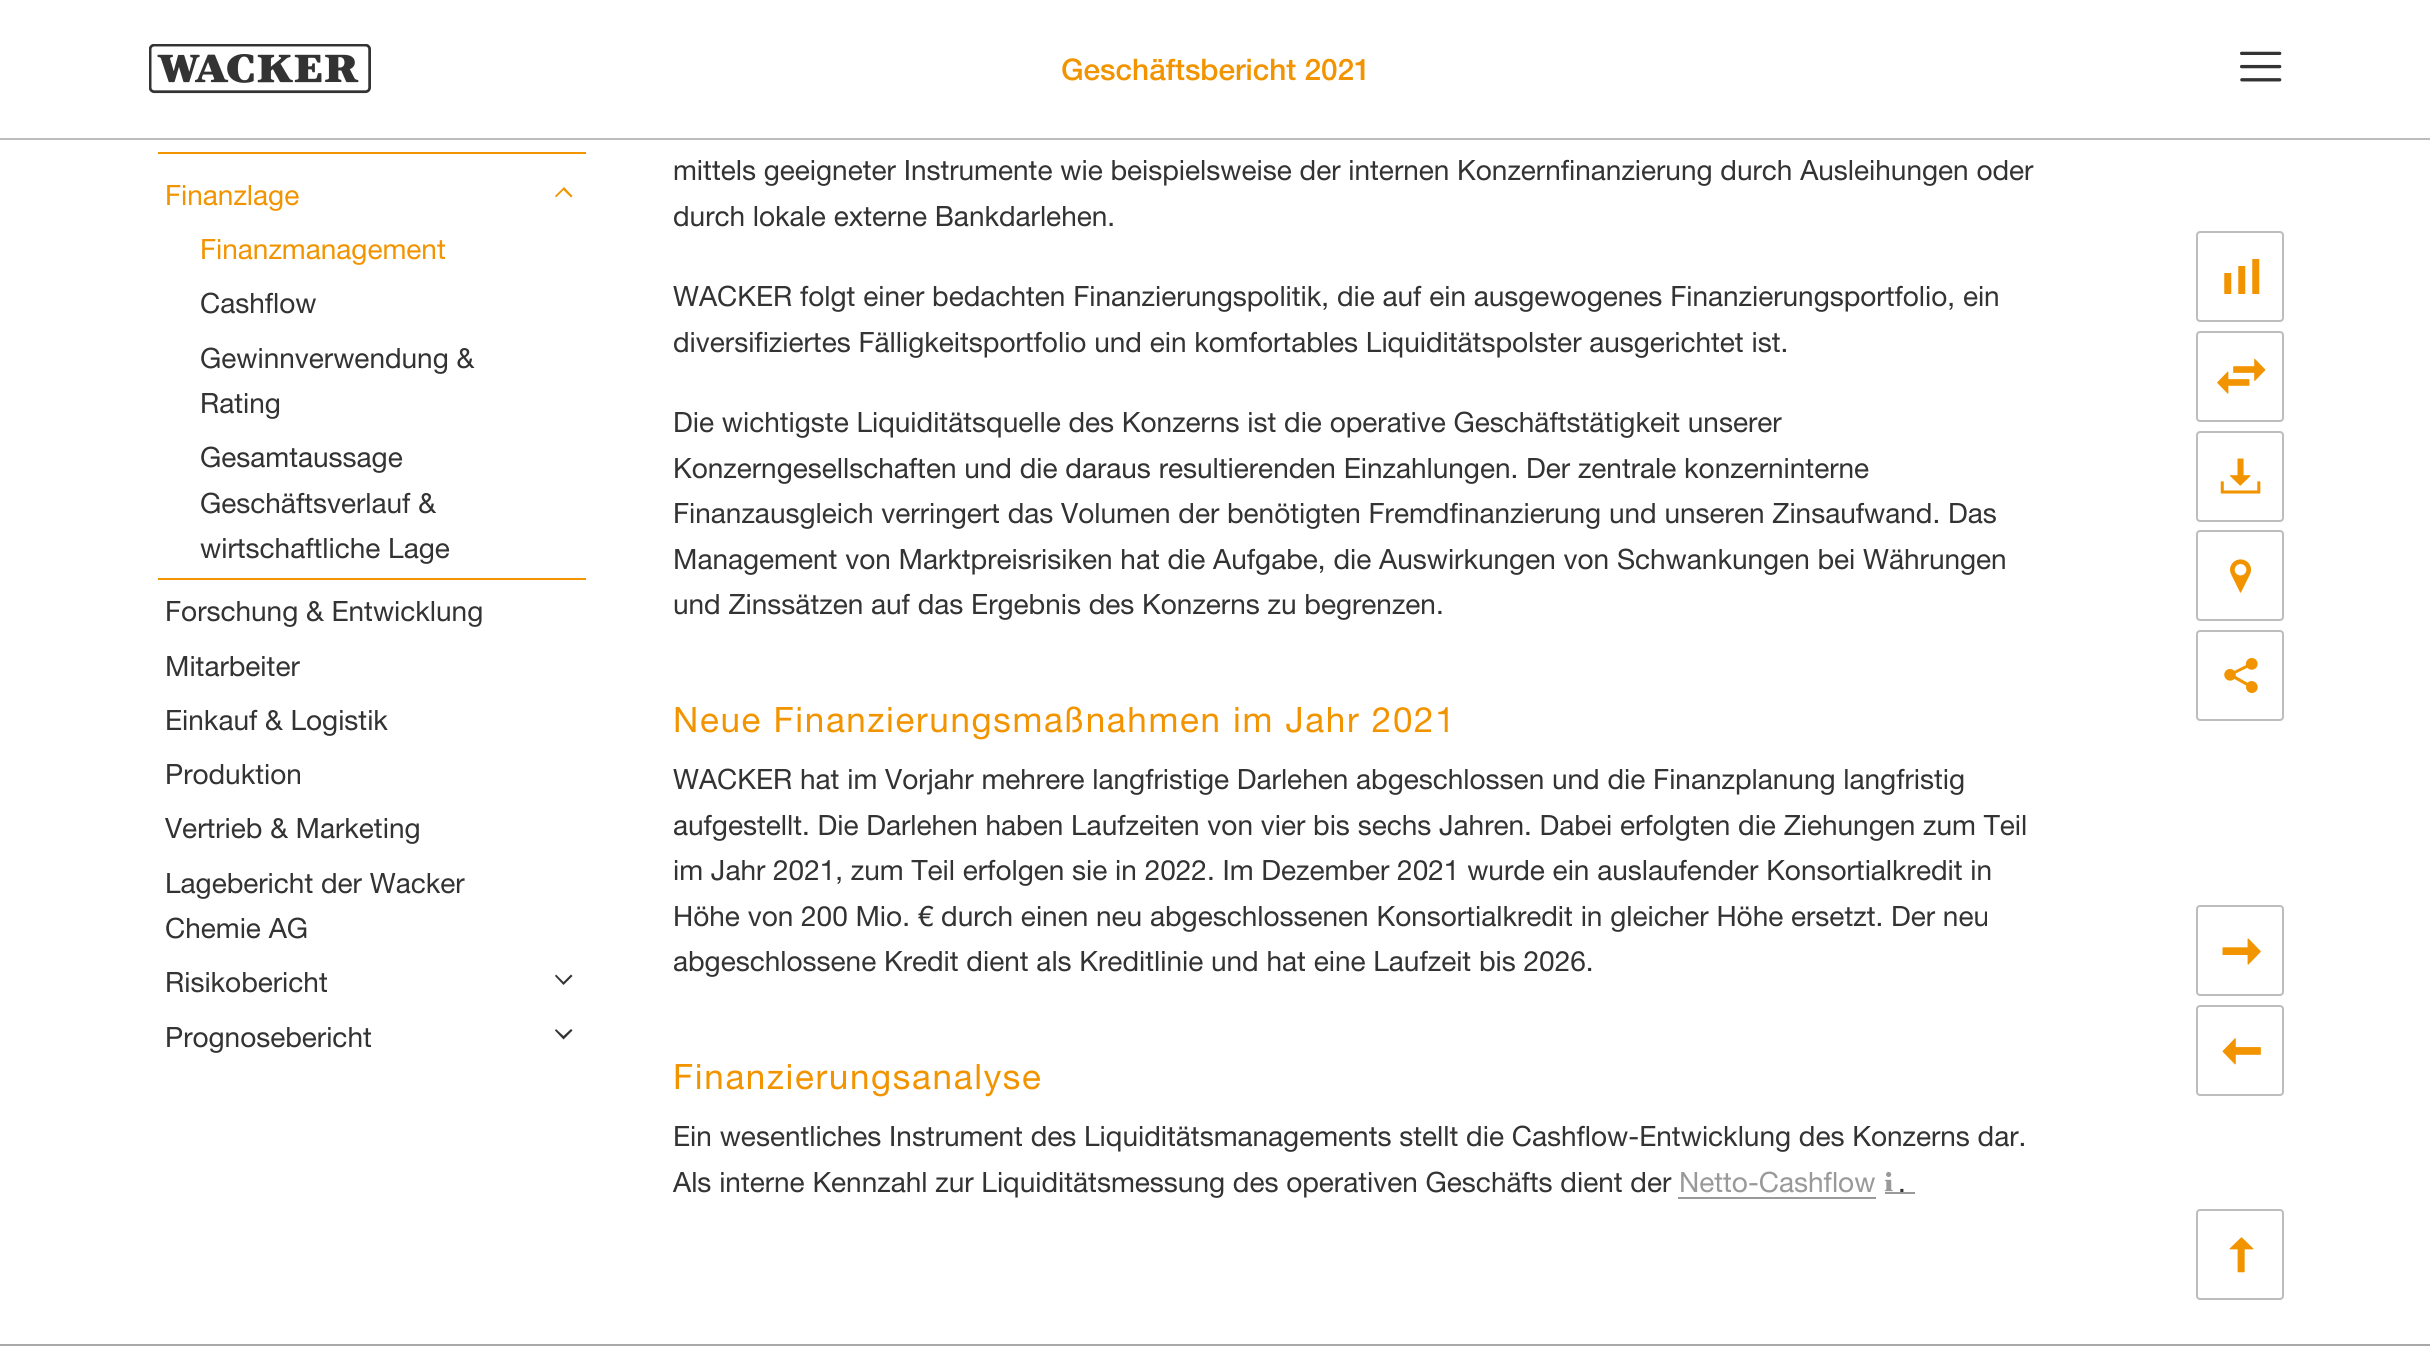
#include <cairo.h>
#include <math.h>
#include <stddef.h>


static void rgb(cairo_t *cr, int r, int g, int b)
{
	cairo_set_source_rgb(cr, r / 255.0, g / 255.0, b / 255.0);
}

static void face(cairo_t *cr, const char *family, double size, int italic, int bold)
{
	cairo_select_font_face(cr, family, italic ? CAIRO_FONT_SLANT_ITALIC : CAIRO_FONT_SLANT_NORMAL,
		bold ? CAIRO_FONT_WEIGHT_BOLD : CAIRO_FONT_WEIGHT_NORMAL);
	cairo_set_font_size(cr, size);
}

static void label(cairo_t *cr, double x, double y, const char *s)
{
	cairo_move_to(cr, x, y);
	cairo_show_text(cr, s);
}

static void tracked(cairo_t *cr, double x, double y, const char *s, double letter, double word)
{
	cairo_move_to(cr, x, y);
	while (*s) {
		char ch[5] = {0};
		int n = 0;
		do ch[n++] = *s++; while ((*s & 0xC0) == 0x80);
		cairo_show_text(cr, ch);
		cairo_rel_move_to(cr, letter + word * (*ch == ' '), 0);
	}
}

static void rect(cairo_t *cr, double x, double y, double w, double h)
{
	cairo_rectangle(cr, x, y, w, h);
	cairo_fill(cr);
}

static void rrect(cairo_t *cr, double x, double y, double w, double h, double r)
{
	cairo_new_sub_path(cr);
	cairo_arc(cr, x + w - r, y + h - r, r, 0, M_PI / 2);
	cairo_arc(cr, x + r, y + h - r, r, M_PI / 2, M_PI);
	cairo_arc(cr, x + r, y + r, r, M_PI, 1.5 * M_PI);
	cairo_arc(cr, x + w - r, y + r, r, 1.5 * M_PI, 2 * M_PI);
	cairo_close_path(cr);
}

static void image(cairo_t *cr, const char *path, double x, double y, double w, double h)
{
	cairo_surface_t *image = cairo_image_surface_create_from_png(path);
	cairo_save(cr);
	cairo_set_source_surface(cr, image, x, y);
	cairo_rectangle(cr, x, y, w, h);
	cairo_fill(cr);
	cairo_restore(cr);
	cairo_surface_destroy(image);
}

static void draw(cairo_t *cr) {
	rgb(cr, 255, 255, 255);
	cairo_paint(cr);
	rgb(cr, 189, 189, 189);
	rect(cr, 0, 138, 2430, 2);
	image(cr, "image0.png", 149, 44, 222, 50);
	face(cr, "Helvetica Neue Medium", 29.75, 0, 0);
	rgb(cr, 242, 148, 0);
	label(cr, 1061, 80, "Geschäftsbericht 2021");
	image(cr, "image1.png", 2240, 51, 42, 31);
	rect(cr, 158, 152, 428, 2);
	rect(cr, 158, 578, 428, 2);
	face(cr, "Helvetica Neue", 28, 0, 0);
	label(cr, 165, 205, "Finanzlage");
	cairo_new_path(cr);
	cairo_move_to(cr, 572.5, 196);
	cairo_line_to(cr, 571, 197.5);
	cairo_line_to(cr, 563.5, 190);
	cairo_line_to(cr, 556, 197.5);
	cairo_line_to(cr, 555, 196);
	cairo_line_to(cr, 564, 187);
	cairo_close_path(cr);
	cairo_fill(cr);
	label(cr, 200, 259, "Finanzmanagement");
	rgb(cr, 51, 51, 51);
	label(cr, 200, 313, "Cashflow");
	label(cr, 200, 368, "Gewinnverwendung &");
	label(cr, 200, 413, "Rating");
	label(cr, 200, 467, "Gesamtaussage");
	label(cr, 200, 513, "Geschäftsverlauf &");
	label(cr, 200, 558, "wirtschaftliche Lage");
	label(cr, 165, 621, "Forschung & Entwicklung");
	label(cr, 165, 676, "Mitarbeiter");
	label(cr, 165, 730, "Einkauf & Logistik");
	label(cr, 165, 784, "Produktion");
	label(cr, 165, 838, "Vertrieb & Marketing");
	label(cr, 165, 893, "Lagebericht der Wacker");
	label(cr, 165, 938, "Chemie AG");
	label(cr, 165, 992, "Risikobericht");
	cairo_new_path(cr);
	cairo_move_to(cr, 555, 976);
	cairo_line_to(cr, 556, 974.5);
	cairo_line_to(cr, 563.5, 982);
	cairo_line_to(cr, 571, 974.5);
	cairo_line_to(cr, 572.5, 976);
	cairo_line_to(cr, 563.5, 985);
	cairo_close_path(cr);
	cairo_fill(cr);
	label(cr, 165, 1047, "Prognosebericht");
	cairo_new_path(cr);
	cairo_move_to(cr, 555, 1030.5);
	cairo_line_to(cr, 556, 1029);
	cairo_line_to(cr, 563.5, 1036);
	cairo_line_to(cr, 571, 1029);
	cairo_line_to(cr, 572.5, 1030.5);
	cairo_line_to(cr, 563.5, 1039.5);
	cairo_close_path(cr);
	cairo_fill(cr);
	label(cr, 673, 180, "mittels geeigneter Instrumente wie beispielsweise der internen Konzernfinanzierung durch Ausleihungen oder");
	label(cr, 673, 226, "durch lokale externe Bankdarlehen.");
	label(cr, 673, 306, "WACKER folgt einer bedachten Finanzierungspolitik, die auf ein ausgewogenes Finanzierungsportfolio, ein");
	label(cr, 673, 352, "diversifiziertes Fälligkeitsportfolio und ein komfortables Liquiditätspolster ausgerichtet ist.");
	label(cr, 673, 432, "Die wichtigste Liquiditätsquelle des Konzerns ist die operative Geschäftstätigkeit unserer");
	label(cr, 673, 478, "Konzerngesellschaften und die daraus resultierenden Einzahlungen. Der zentrale konzerninterne");
	label(cr, 673, 523, "Finanzausgleich verringert das Volumen der benötigten Fremdfinanzierung und unseren Zinsaufwand. Das");
	label(cr, 673, 569, "Management von Marktpreisrisiken hat die Aufgabe, die Auswirkungen von Schwankungen bei Währungen");
	label(cr, 673, 614, "und Zinssätzen auf das Ergebnis des Konzerns zu begrenzen.");
	face(cr, "Helvetica Neue", 35, 0, 0);
	rgb(cr, 242, 148, 0);
	tracked(cr, 673, 732, "Neue Finanzierungsmaßnahmen im Jahr 2021", 1.7, 0);
	face(cr, "Helvetica Neue", 28, 0, 0);
	rgb(cr, 51, 51, 51);
	label(cr, 673, 789, "WACKER hat im Vorjahr mehrere langfristige Darlehen abgeschlossen und die Finanzplanung langfristig");
	label(cr, 673, 835, "aufgestellt. Die Darlehen haben Laufzeiten von vier bis sechs Jahren. Dabei erfolgten die Ziehungen zum Teil");
	label(cr, 673, 880, "im Jahr 2021, zum Teil erfolgen sie in 2022. Im Dezember 2021 wurde ein auslaufender Konsortialkredit in");
	label(cr, 673, 926, "Höhe von 200 Mio. € durch einen neu abgeschlossenen Konsortialkredit in gleicher Höhe ersetzt. Der neu");
	label(cr, 673, 971, "abgeschlossene Kredit dient als Kreditlinie und hat eine Laufzeit bis 2026.");
	face(cr, "Helvetica Neue", 35, 0, 0);
	rgb(cr, 242, 148, 0);
	tracked(cr, 673, 1089, "Finanzierungsanalyse", 1.7, 0);
	face(cr, "Helvetica Neue", 28, 0, 0);
	rgb(cr, 51, 51, 51);
	label(cr, 673, 1146, "Ein wesentliches Instrument des Liquiditätsmanagements stellt die Cashflow-Entwicklung des Konzerns dar.");
	label(cr, 673, 1192, "Als interne Kennzahl zur Liquiditätsmessung des operativen Geschäfts dient der");
	rgb(cr, 153, 153, 153);
	rect(cr, 1678, 1197, 198, 2);
	rect(cr, 1885, 1192, 30, 2);
	label(cr, 1679, 1192, "Netto-Cashflow");
	image(cr, "image2.png", 1884, 1171, 9, 21);
	rgb(cr, 51, 51, 51);
	label(cr, 1898, 1192, ".");
	rrect(cr, 2197, 232, 86, 89, 3);
	rgb(cr, 189, 189, 189);
	cairo_stroke(cr);
	image(cr, "image3.png", 2224, 259, 36, 35);
	rrect(cr, 2197, 332, 86, 89, 3);
	cairo_stroke(cr);
	image(cr, "image4.png", 2217, 358, 49, 36);
	rrect(cr, 2197, 432, 86, 89, 3);
	cairo_stroke(cr);
	image(cr, "image5.png", 2220, 458, 41, 36);
	rrect(cr, 2197, 531, 86, 89, 3);
	cairo_stroke(cr);
	image(cr, "image6.png", 2230, 559, 22, 34);
	rrect(cr, 2197, 631, 86, 89, 3);
	cairo_stroke(cr);
	image(cr, "image7.png", 2224, 658, 34, 35);
	rrect(cr, 2197, 906, 86, 89, 3);
	cairo_stroke(cr);
	image(cr, "image8.png", 2222, 938, 39, 27);
	rrect(cr, 2197, 1006, 86, 89, 3);
	cairo_stroke(cr);
	image(cr, "image9.png", 2222, 1038, 39, 27);
	rrect(cr, 2197, 1210, 86, 89, 3);
	cairo_stroke(cr);
	image(cr, "image10.png", 2229, 1237, 25, 36);
	rgb(cr, 169, 169, 169);
	rect(cr, 0, 1344, 2430, 2);
}

int main(void) {
	cairo_surface_t *surface = cairo_image_surface_create(CAIRO_FORMAT_RGB24, 2430, 1351);
	cairo_t *cr = cairo_create(surface);
	cairo_font_options_t *options = cairo_font_options_create();
	cairo_font_options_set_hint_metrics(options, CAIRO_HINT_METRICS_OFF);
	cairo_font_options_set_hint_style(options, CAIRO_HINT_STYLE_NONE);
	cairo_set_font_options(cr, options);
	cairo_set_miter_limit(cr, 4);
	draw(cr);
	cairo_surface_write_to_png(surface, "render.png");
	cairo_font_options_destroy(options);
	cairo_destroy(cr);
	cairo_surface_destroy(surface);
	return 0;
}
